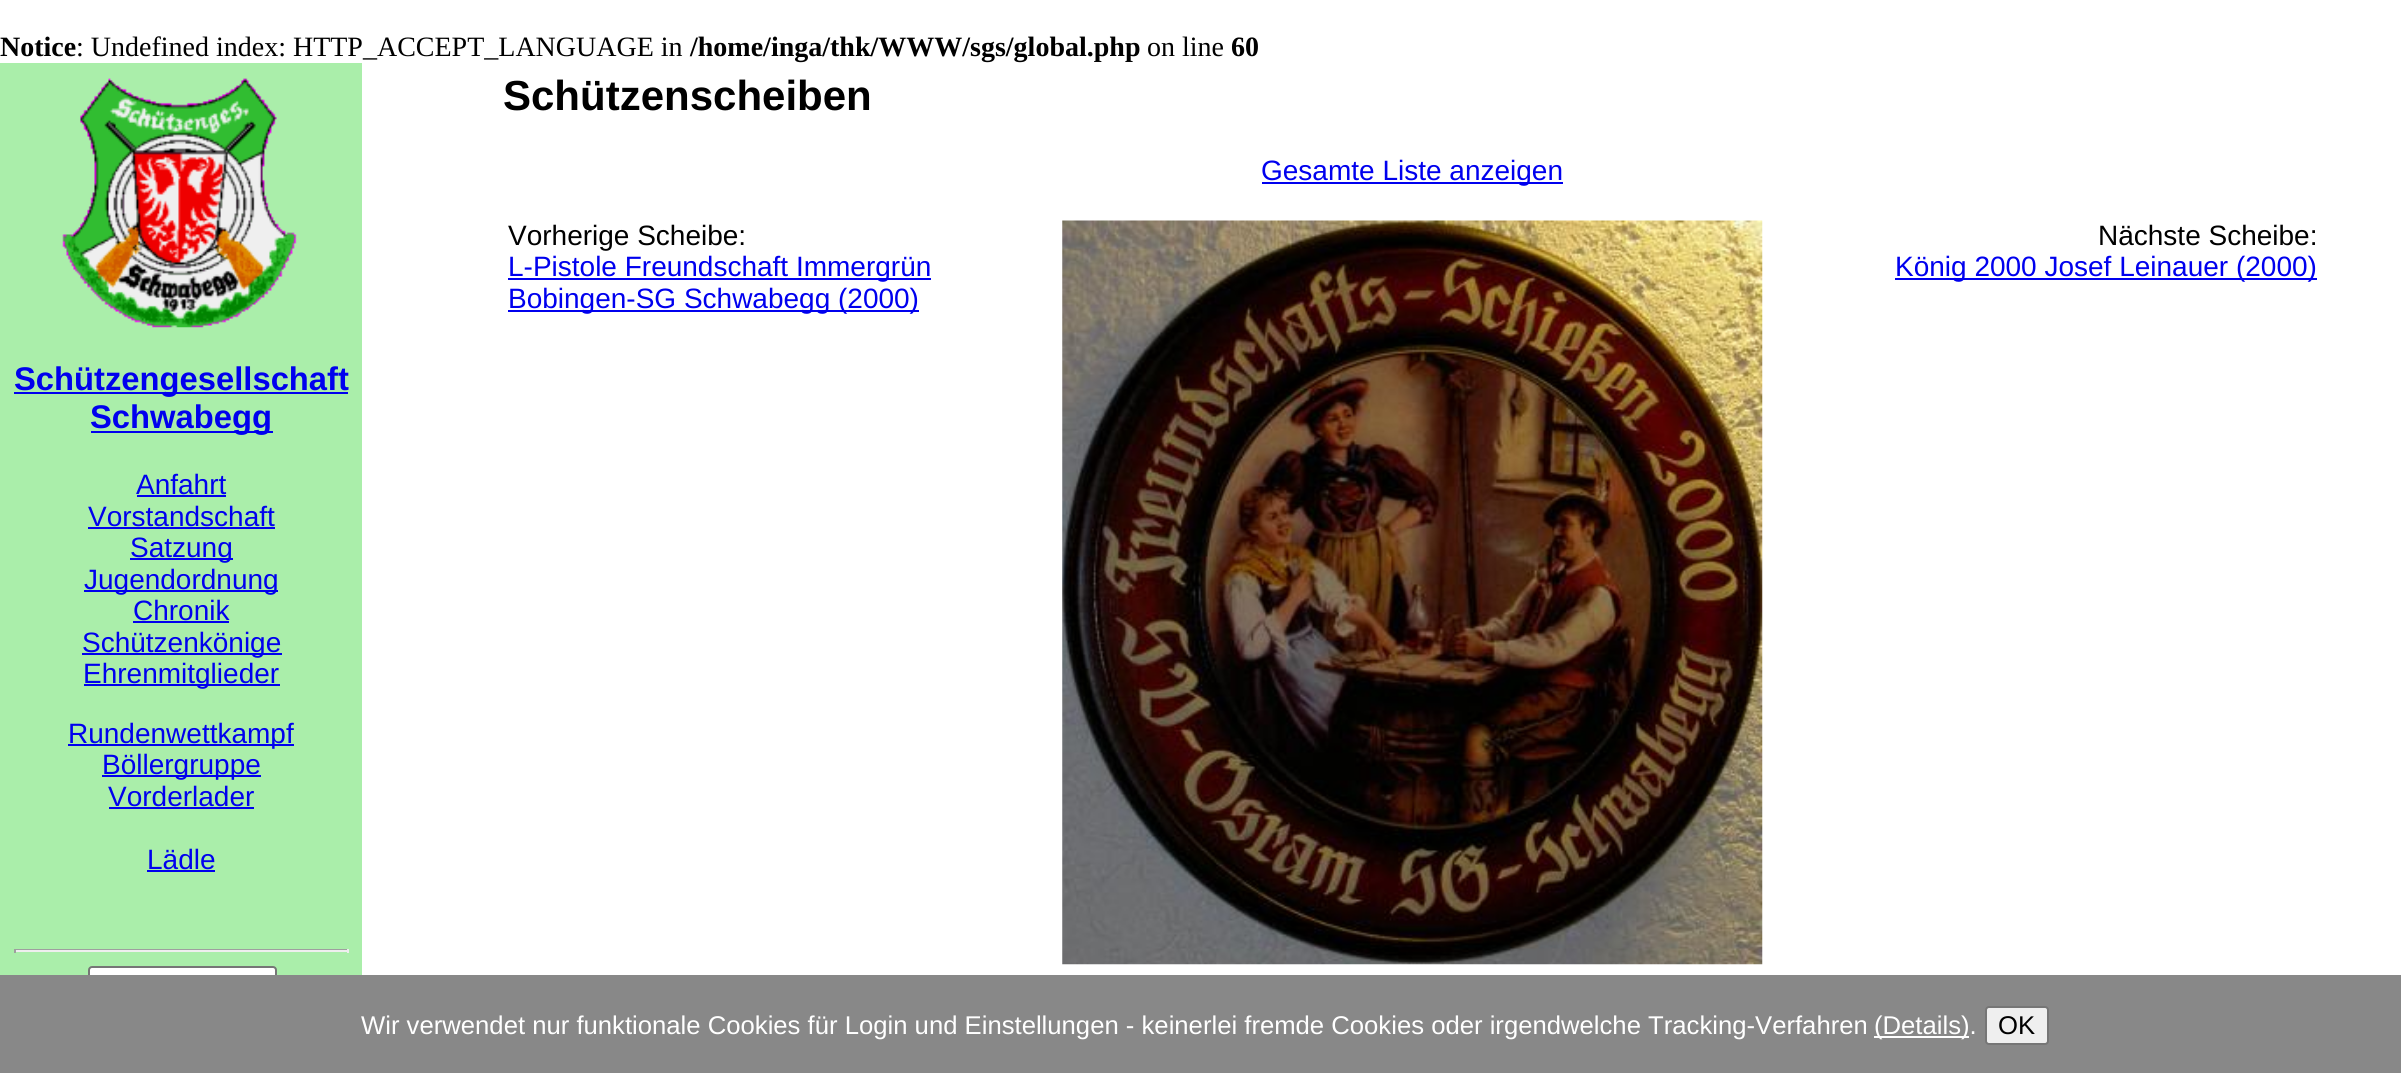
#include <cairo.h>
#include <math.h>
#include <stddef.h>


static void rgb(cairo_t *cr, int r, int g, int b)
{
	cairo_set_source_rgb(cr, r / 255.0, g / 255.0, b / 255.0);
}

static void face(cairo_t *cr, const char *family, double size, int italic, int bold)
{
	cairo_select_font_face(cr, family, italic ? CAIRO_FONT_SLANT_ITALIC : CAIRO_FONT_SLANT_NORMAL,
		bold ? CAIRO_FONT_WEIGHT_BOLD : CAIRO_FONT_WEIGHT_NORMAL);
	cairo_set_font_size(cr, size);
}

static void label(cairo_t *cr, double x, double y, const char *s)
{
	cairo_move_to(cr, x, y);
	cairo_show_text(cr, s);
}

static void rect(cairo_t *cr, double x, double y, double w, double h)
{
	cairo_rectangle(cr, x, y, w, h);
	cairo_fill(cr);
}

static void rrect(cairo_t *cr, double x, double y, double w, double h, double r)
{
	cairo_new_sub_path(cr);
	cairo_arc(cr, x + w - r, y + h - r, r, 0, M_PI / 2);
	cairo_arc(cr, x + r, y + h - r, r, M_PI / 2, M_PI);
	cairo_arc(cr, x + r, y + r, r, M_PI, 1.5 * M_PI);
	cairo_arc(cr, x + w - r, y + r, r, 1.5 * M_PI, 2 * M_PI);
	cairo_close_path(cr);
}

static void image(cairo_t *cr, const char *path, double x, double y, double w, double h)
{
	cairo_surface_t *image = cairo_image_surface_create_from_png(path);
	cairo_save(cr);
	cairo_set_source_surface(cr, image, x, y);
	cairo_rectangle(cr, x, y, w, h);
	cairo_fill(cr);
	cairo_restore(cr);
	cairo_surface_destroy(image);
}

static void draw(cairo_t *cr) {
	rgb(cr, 255, 255, 255);
	cairo_paint(cr);
	face(cr, "Liberation Serif", 28, 0, 1);
	rgb(cr, 0, 0, 0);
	label(cr, 0, 56, "Notice");
	face(cr, "Liberation Serif", 28, 0, 0);
	label(cr, 76, 56, ": Undefined index: HTTP_ACCEPT_LANGUAGE in");
	face(cr, "Liberation Serif", 28, 0, 1);
	label(cr, 690, 56, "/home/inga/thk/WWW/sgs/global.php");
	face(cr, "Liberation Serif", 28, 0, 0);
	label(cr, 1147, 56, "on line");
	face(cr, "Liberation Serif", 28, 0, 1);
	label(cr, 1231, 56, "60");
	face(cr, "Liberation Sans", 42, 0, 1);
	label(cr, 503, 110, "Schützenscheiben");
	rgb(cr, 0, 0, 238);
	rect(cr, 1262, 182, 301, 2);
	face(cr, "Liberation Sans", 28, 0, 0);
	label(cr, 1261, 180, "Gesamte Liste anzeigen");
	rgb(cr, 0, 0, 0);
	label(cr, 508, 245, "Vorherige Scheibe:");
	rgb(cr, 0, 0, 238);
	rect(cr, 508, 278, 423, 2);
	label(cr, 508, 276, "L-Pistole Freundschaft Immergrün");
	rect(cr, 508, 310, 411, 2);
	label(cr, 508, 308, "Bobingen-SG Schwabegg (2000)");
	image(cr, "image0.png", 1062, 220, 701, 745);
	rgb(cr, 0, 0, 0);
	label(cr, 2098, 245, "Nächste Scheibe:");
	rgb(cr, 0, 0, 238);
	rect(cr, 1895, 278, 422, 2);
	label(cr, 1895, 276, "König 2000 Josef Leinauer (2000)");
	rgb(cr, 170, 238, 170);
	rect(cr, 0, 63, 362, 912);
	image(cr, "image1.png", 62, 78, 235, 250);
	rgb(cr, 0, 0, 238);
	rect(cr, 14, 392, 334, 2);
	face(cr, "Liberation Sans", 32.75, 0, 1);
	label(cr, 14, 390, "Schützengesellschaft");
	rect(cr, 91, 431, 182, 2);
	label(cr, 90, 428, "Schwabegg");
	face(cr, "Liberation Sans", 28, 0, 0);
	label(cr, 136, 494, "Anfahrt");
	rect(cr, 137, 495, 89, 2);
	label(cr, 88, 526, "Vorstandschaft");
	rect(cr, 88, 527, 187, 2);
	rect(cr, 130, 558, 103, 2);
	label(cr, 130, 557, "Satzung");
	rect(cr, 84, 590, 194, 2);
	label(cr, 84, 589, "Jugendordnung");
	label(cr, 133, 620, "Chronik");
	rect(cr, 133, 621, 96, 2);
	rect(cr, 82, 653, 200, 2);
	label(cr, 82, 652, "Schützenkönige");
	rect(cr, 84, 684, 196, 2);
	label(cr, 83, 683, "Ehrenmitglieder");
	rect(cr, 68, 744, 226, 2);
	label(cr, 68, 743, "Rundenwettkampf");
	rect(cr, 102, 775, 159, 2);
	label(cr, 102, 774, "Böllergruppe");
	label(cr, 108, 806, "Vorderlader");
	rect(cr, 109, 807, 145, 2);
	label(cr, 147, 869, "Lädle");
	rect(cr, 147, 870, 68, 2);
	rgb(cr, 159, 159, 159);
	rect(cr, 14, 949, 334, 1);
	rgb(cr, 238, 238, 238);
	rect(cr, 347, 949, 2, 4);
	rect(cr, 14, 950, 334, 2);
	rgb(cr, 159, 159, 159);
	rect(cr, 14, 949, 2, 4);
	rgb(cr, 255, 255, 255);
	rrect(cr, 89, 967, 187, 33, 3);
	cairo_fill_preserve(cr);
	rgb(cr, 118, 118, 118);
	cairo_stroke(cr);
	rgb(cr, 136, 136, 136);
	rect(cr, 0, 975, 2401, 98);
	face(cr, "Liberation Sans", 25.67, 0, 0);
	rgb(cr, 255, 255, 255);
	label(cr, 361, 1034, "Wir verwendet nur funktionale Cookies für Login und Einstellungen - keinerlei fremde Cookies oder irgendwelche Tracking-Verfahren");
	rect(cr, 1874, 1036, 95, 2);
	label(cr, 1874, 1034, "(Details).");
	rgb(cr, 239, 239, 239);
	rrect(cr, 1986, 1007, 62, 37, 3);
	cairo_fill_preserve(cr);
	rgb(cr, 118, 118, 118);
	cairo_stroke(cr);
	rgb(cr, 0, 0, 0);
	label(cr, 1998, 1034, "OK");
}

int main(void) {
	cairo_surface_t *surface = cairo_image_surface_create(CAIRO_FORMAT_RGB24, 2401, 1073);
	cairo_t *cr = cairo_create(surface);
	cairo_font_options_t *options = cairo_font_options_create();
	cairo_font_options_set_hint_metrics(options, CAIRO_HINT_METRICS_OFF);
	cairo_font_options_set_hint_style(options, CAIRO_HINT_STYLE_NONE);
	cairo_set_font_options(cr, options);
	cairo_set_miter_limit(cr, 4);
	draw(cr);
	cairo_surface_write_to_png(surface, "render.png");
	cairo_font_options_destroy(options);
	cairo_destroy(cr);
	cairo_surface_destroy(surface);
	return 0;
}
